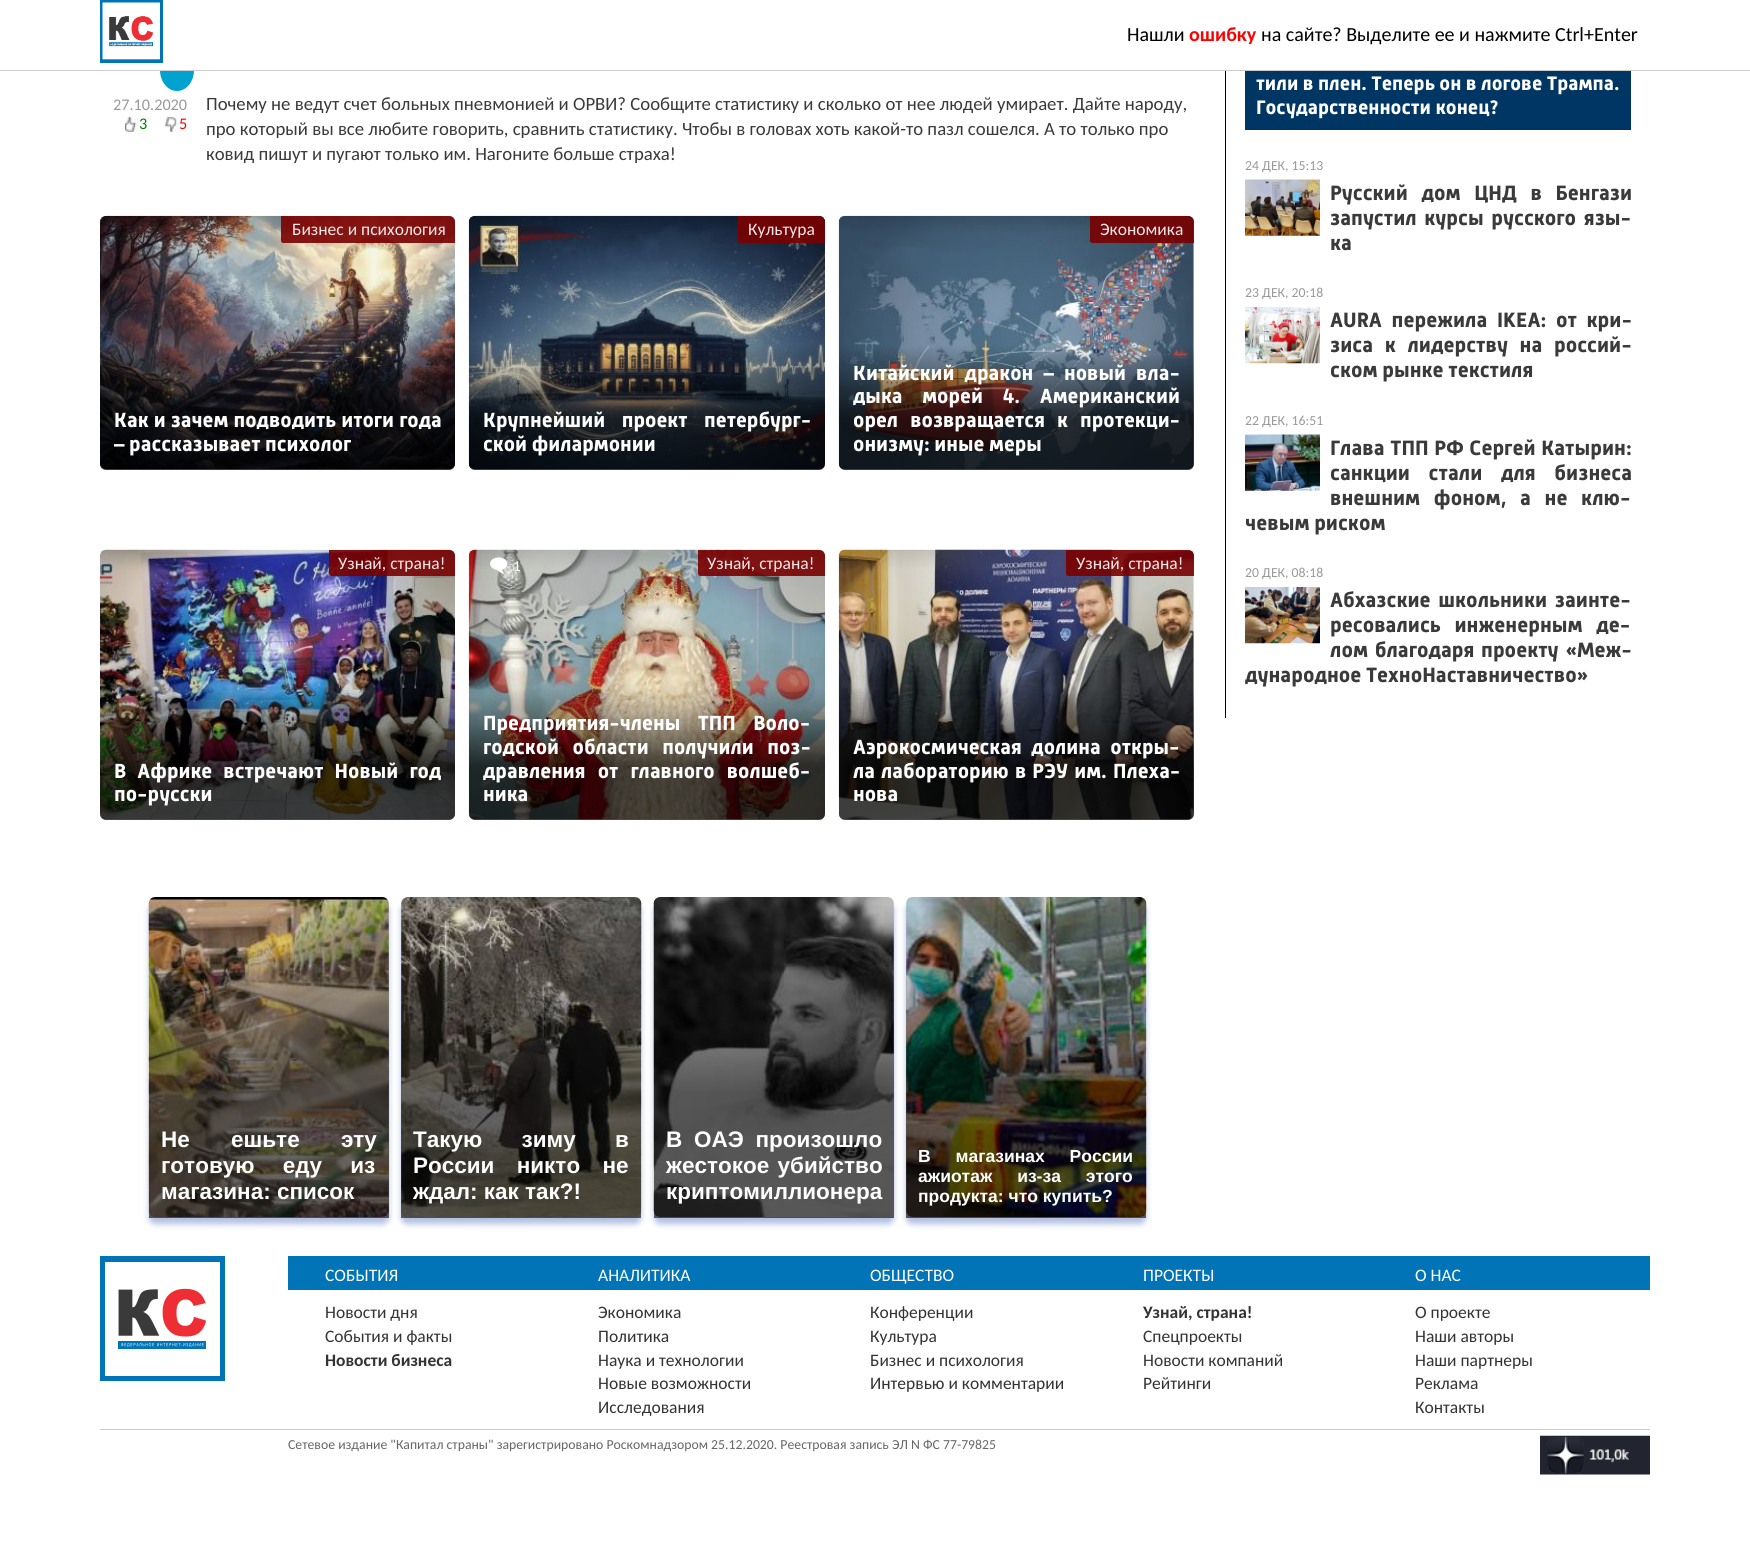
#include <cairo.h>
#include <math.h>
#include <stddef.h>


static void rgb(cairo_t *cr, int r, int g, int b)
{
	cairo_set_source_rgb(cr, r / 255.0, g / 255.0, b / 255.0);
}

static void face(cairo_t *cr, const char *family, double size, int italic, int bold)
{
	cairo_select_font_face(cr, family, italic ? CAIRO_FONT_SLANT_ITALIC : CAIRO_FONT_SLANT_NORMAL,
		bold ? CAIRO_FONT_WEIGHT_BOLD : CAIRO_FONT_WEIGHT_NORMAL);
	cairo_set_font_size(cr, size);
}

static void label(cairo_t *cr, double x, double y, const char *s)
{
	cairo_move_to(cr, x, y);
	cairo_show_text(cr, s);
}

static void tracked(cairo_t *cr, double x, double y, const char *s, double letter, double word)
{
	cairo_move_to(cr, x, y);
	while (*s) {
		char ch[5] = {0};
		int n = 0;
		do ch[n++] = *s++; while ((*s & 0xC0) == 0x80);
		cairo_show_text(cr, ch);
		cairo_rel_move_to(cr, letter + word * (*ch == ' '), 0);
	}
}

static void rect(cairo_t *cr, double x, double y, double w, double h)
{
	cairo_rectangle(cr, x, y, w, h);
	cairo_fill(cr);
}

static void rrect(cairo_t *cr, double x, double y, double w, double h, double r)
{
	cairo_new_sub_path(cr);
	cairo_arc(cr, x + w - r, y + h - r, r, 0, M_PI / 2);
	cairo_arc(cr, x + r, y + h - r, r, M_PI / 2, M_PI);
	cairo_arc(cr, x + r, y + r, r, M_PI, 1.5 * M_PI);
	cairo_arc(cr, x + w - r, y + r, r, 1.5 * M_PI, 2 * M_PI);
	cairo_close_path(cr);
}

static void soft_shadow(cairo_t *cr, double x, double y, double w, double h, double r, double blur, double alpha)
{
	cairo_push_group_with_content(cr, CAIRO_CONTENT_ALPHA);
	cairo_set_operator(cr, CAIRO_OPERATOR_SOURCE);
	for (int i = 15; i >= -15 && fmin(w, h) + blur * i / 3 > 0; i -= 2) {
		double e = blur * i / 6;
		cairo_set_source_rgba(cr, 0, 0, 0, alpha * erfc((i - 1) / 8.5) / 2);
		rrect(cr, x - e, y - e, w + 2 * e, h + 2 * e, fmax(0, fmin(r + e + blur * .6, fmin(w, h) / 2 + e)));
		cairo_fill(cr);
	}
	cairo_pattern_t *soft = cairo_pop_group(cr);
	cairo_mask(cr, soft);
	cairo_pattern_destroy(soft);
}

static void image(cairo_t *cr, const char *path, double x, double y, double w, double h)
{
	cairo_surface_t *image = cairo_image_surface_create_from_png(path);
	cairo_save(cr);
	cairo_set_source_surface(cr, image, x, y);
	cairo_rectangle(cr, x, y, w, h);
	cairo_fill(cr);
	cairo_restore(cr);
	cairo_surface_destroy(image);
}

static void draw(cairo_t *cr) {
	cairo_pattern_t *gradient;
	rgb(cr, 255, 255, 255);
	cairo_paint(cr);
	rgb(cr, 0, 162, 208);
	cairo_new_path(cr);
	cairo_move_to(cr, 177, 49);
	cairo_curve_to(cr, 186.5, 49, 194, 58.5, 194, 70);
	cairo_curve_to(cr, 194, 81.5, 186.5, 91, 177, 91);
	cairo_curve_to(cr, 167.5, 91, 160, 81.5, 160, 70);
	cairo_curve_to(cr, 160, 58.5, 167.5, 49, 177, 49);
	cairo_close_path(cr);
	cairo_fill(cr);
	rgb(cr, 255, 255, 255);
	rect(cr, 160, 49, 34, 21);
	rgb(cr, 204, 204, 204);
	rect(cr, 0, 70, 1750, 1);
	image(cr, "image0.png", 100, 0, 63, 63);
	face(cr, "Carlito", 20, 0, 0);
	rgb(cr, 0, 0, 0);
	label(cr, 1127, 41, "Нашли");
	face(cr, "Carlito", 20, 0, 1);
	rgb(cr, 255, 0, 0);
	label(cr, 1189, 41, "ошибку");
	face(cr, "Carlito", 20, 0, 0);
	rgb(cr, 0, 0, 0);
	label(cr, 1261, 41, "на сайте? Выделите ее и нажмите Ctrl+Enter");
	face(cr, "Carlito", 16.25, 0, 0);
	rgb(cr, 153, 153, 153);
	label(cr, 113, 110, "27.10.2020");
	image(cr, "image1.png", 125, 117, 12, 15);
	rgb(cr, 0, 128, 0);
	label(cr, 139, 129, "3");
	image(cr, "image2.png", 165, 117, 12, 15);
	rgb(cr, 255, 0, 0);
	label(cr, 179, 129, "5");
	face(cr, "Carlito", 18.75, 0, 0);
	rgb(cr, 58, 58, 59);
	label(cr, 206, 110, "Почему не ведут счет больных пневмонией и ОРВИ? Сообщите статистику и сколько от нее людей умирает. Дайте народу,");
	label(cr, 206, 135, "про который вы все любите говорить, сравнить статистику. Чтобы в головах хоть какой-то пазл сошелся. А то только про");
	label(cr, 206, 160, "ковид пишут и пугают только им. Нагоните больше страха!");
	image(cr, "image3.png", 100, 215, 355, 255);
	gradient = cairo_pattern_create_linear(278, 470, 278, 216);
	cairo_pattern_add_color_stop_rgba(gradient, 0, 0, 0, 0, 0.7);
	cairo_pattern_add_color_stop_rgba(gradient, 0.2, 0, 0, 0, 0.7);
	cairo_pattern_add_color_stop_rgba(gradient, 0.49, 0, 0, 0, 0);
	cairo_pattern_add_color_stop_rgba(gradient, 0.93, 0, 0, 0, 0);
	cairo_pattern_add_color_stop_rgba(gradient, 1, 0, 0, 0, 0.1);
	cairo_set_source(cr, gradient);
	cairo_pattern_destroy(gradient);
	rrect(cr, 100, 216, 355, 254, 6);
	cairo_fill(cr);
	cairo_set_source_rgba(cr, 0.475, 0, 0, 0.9);
	cairo_new_path(cr);
	cairo_move_to(cr, 281, 216);
	cairo_line_to(cr, 449, 216);
	cairo_curve_to(cr, 452.5, 216, 455, 218.5, 455, 222);
	cairo_line_to(cr, 455, 243);
	cairo_line_to(cr, 283.5, 243);
	cairo_curve_to(cr, 282, 243, 281, 242, 281, 240.5);
	cairo_close_path(cr);
	cairo_fill(cr);
	face(cr, "Carlito", 17.5, 0, 0);
	rgb(cr, 243, 232, 231);
	label(cr, 292, 235, "Бизнес и психология");
	face(cr, "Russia", 21, 0, 1);
	rgb(cr, 255, 255, 255);
	tracked(cr, 114, 427, "Как и зачем подводить итоги года", 0, 0.5);
	label(cr, 114, 451, "– рассказывает психолог");
	image(cr, "image4.png", 468, 215, 357, 255);
	gradient = cairo_pattern_create_linear(647, 470, 647, 216);
	cairo_pattern_add_color_stop_rgba(gradient, 0, 0, 0, 0, 0.7);
	cairo_pattern_add_color_stop_rgba(gradient, 0.2, 0, 0, 0, 0.7);
	cairo_pattern_add_color_stop_rgba(gradient, 0.49, 0, 0, 0, 0);
	cairo_pattern_add_color_stop_rgba(gradient, 0.93, 0, 0, 0, 0);
	cairo_pattern_add_color_stop_rgba(gradient, 1, 0, 0, 0, 0.1);
	cairo_set_source(cr, gradient);
	cairo_pattern_destroy(gradient);
	rrect(cr, 469, 216, 356, 254, 6);
	cairo_fill(cr);
	cairo_set_source_rgba(cr, 0.475, 0, 0, 0.9);
	cairo_new_path(cr);
	cairo_move_to(cr, 738, 216);
	cairo_line_to(cr, 819, 216);
	cairo_curve_to(cr, 822.5, 216, 825, 218.5, 825, 222);
	cairo_line_to(cr, 825, 243);
	cairo_line_to(cr, 740.5, 243);
	cairo_curve_to(cr, 739, 243, 738, 242, 738, 240.5);
	cairo_close_path(cr);
	cairo_fill(cr);
	face(cr, "Carlito", 17.5, 0, 0);
	rgb(cr, 243, 232, 231);
	label(cr, 748, 235, "Культура");
	face(cr, "Russia", 21, 0, 1);
	rgb(cr, 255, 255, 255);
	tracked(cr, 483, 427, "Крупнейший проект петербург-", 0, 12);
	label(cr, 483, 451, "ской филармонии");
	image(cr, "image5.png", 838, 215, 356, 255);
	gradient = cairo_pattern_create_linear(1016, 470, 1016, 216);
	cairo_pattern_add_color_stop_rgba(gradient, 0, 0, 0, 0, 0.7);
	cairo_pattern_add_color_stop_rgba(gradient, 0.2, 0, 0, 0, 0.7);
	cairo_pattern_add_color_stop_rgba(gradient, 0.49, 0, 0, 0, 0);
	cairo_pattern_add_color_stop_rgba(gradient, 0.93, 0, 0, 0, 0);
	cairo_pattern_add_color_stop_rgba(gradient, 1, 0, 0, 0, 0.1);
	cairo_set_source(cr, gradient);
	cairo_pattern_destroy(gradient);
	rrect(cr, 839, 216, 355, 254, 6);
	cairo_fill(cr);
	cairo_set_source_rgba(cr, 0.475, 0, 0, 0.9);
	cairo_new_path(cr);
	cairo_move_to(cr, 1090, 216);
	cairo_line_to(cr, 1188, 216);
	cairo_curve_to(cr, 1191.5, 216, 1194, 218.5, 1194, 222);
	cairo_line_to(cr, 1194, 243);
	cairo_line_to(cr, 1092.5, 243);
	cairo_curve_to(cr, 1091, 243, 1090, 242, 1090, 240.5);
	cairo_close_path(cr);
	cairo_fill(cr);
	face(cr, "Carlito", 17.5, 0, 0);
	rgb(cr, 243, 232, 231);
	label(cr, 1100, 235, "Экономика");
	face(cr, "Russia", 21, 0, 1);
	rgb(cr, 255, 255, 255);
	tracked(cr, 853, 380, "Китайский дракон – новый вла-", 0, 5.5);
	tracked(cr, 853, 403, "дыка морей 4. Американский", 0, 15);
	tracked(cr, 853, 427, "орел возвращается к протекци-", 0, 7.5);
	label(cr, 853, 451, "онизму: иные меры");
	image(cr, "image6.png", 100, 549, 355, 271);
	gradient = cairo_pattern_create_linear(278, 820, 278, 550);
	cairo_pattern_add_color_stop_rgba(gradient, 0, 0, 0, 0, 0.7);
	cairo_pattern_add_color_stop_rgba(gradient, 0.2, 0, 0, 0, 0.7);
	cairo_pattern_add_color_stop_rgba(gradient, 0.49, 0, 0, 0, 0);
	cairo_pattern_add_color_stop_rgba(gradient, 0.93, 0, 0, 0, 0);
	cairo_pattern_add_color_stop_rgba(gradient, 1, 0, 0, 0, 0.1);
	cairo_set_source(cr, gradient);
	cairo_pattern_destroy(gradient);
	rrect(cr, 100, 550, 355, 270, 6);
	cairo_fill(cr);
	cairo_set_source_rgba(cr, 0.475, 0, 0, 0.9);
	cairo_new_path(cr);
	cairo_move_to(cr, 329, 550);
	cairo_line_to(cr, 449, 550);
	cairo_curve_to(cr, 452.5, 550, 455, 552.5, 455, 556);
	cairo_line_to(cr, 455, 576);
	cairo_line_to(cr, 331.5, 576);
	cairo_curve_to(cr, 330, 576, 329, 575, 329, 573.5);
	cairo_close_path(cr);
	cairo_fill(cr);
	face(cr, "Carlito", 17.5, 0, 0);
	rgb(cr, 243, 232, 231);
	label(cr, 338, 569, "Узнай, страна!");
	face(cr, "Russia", 21, 0, 1);
	rgb(cr, 255, 255, 255);
	tracked(cr, 114, 778, "В Африке встречают Новый год", 0, 6.5);
	label(cr, 114, 801, "по-русски");
	image(cr, "image7.png", 468, 549, 357, 271);
	gradient = cairo_pattern_create_linear(647, 820, 647, 550);
	cairo_pattern_add_color_stop_rgba(gradient, 0, 0, 0, 0, 0.7);
	cairo_pattern_add_color_stop_rgba(gradient, 0.2, 0, 0, 0, 0.7);
	cairo_pattern_add_color_stop_rgba(gradient, 0.49, 0, 0, 0, 0);
	cairo_pattern_add_color_stop_rgba(gradient, 0.93, 0, 0, 0, 0);
	cairo_pattern_add_color_stop_rgba(gradient, 1, 0, 0, 0, 0.1);
	cairo_set_source(cr, gradient);
	cairo_pattern_destroy(gradient);
	rrect(cr, 469, 550, 356, 270, 6);
	cairo_fill(cr);
	image(cr, "image8.png", 490, 557, 18, 17);
	face(cr, "Carlito", 15, 0, 0);
	rgb(cr, 255, 255, 255);
	label(cr, 513, 571, "1");
	cairo_set_source_rgba(cr, 0.475, 0, 0, 0.9);
	cairo_new_path(cr);
	cairo_move_to(cr, 698, 550);
	cairo_line_to(cr, 819, 550);
	cairo_curve_to(cr, 822.5, 550, 825, 552.5, 825, 556);
	cairo_line_to(cr, 825, 576);
	cairo_line_to(cr, 700.5, 576);
	cairo_curve_to(cr, 699, 576, 698, 575, 698, 573.5);
	cairo_close_path(cr);
	cairo_fill(cr);
	face(cr, "Carlito", 17.5, 0, 0);
	rgb(cr, 243, 232, 231);
	label(cr, 707, 569, "Узнай, страна!");
	face(cr, "Russia", 21, 0, 1);
	rgb(cr, 255, 255, 255);
	tracked(cr, 483, 730, "Предприятия-члены ТПП Воло-", 0, 13);
	tracked(cr, 483, 754, "годской области получили поз-", 0, 9);
	tracked(cr, 483, 778, "дравления от главного волшеб-", 0, 7.5);
	label(cr, 483, 801, "ника");
	image(cr, "image9.png", 838, 549, 356, 271);
	gradient = cairo_pattern_create_linear(1016, 820, 1016, 550);
	cairo_pattern_add_color_stop_rgba(gradient, 0, 0, 0, 0, 0.7);
	cairo_pattern_add_color_stop_rgba(gradient, 0.2, 0, 0, 0, 0.7);
	cairo_pattern_add_color_stop_rgba(gradient, 0.49, 0, 0, 0, 0);
	cairo_pattern_add_color_stop_rgba(gradient, 0.93, 0, 0, 0, 0);
	cairo_pattern_add_color_stop_rgba(gradient, 1, 0, 0, 0, 0.1);
	cairo_set_source(cr, gradient);
	cairo_pattern_destroy(gradient);
	rrect(cr, 839, 550, 355, 270, 6);
	cairo_fill(cr);
	cairo_set_source_rgba(cr, 0.475, 0, 0, 0.9);
	cairo_new_path(cr);
	cairo_move_to(cr, 1066, 550);
	cairo_line_to(cr, 1188, 550);
	cairo_curve_to(cr, 1191.5, 550, 1194, 552.5, 1194, 556);
	cairo_line_to(cr, 1194, 576);
	cairo_line_to(cr, 1068.5, 576);
	cairo_curve_to(cr, 1067, 576, 1066, 575, 1066, 573.5);
	cairo_close_path(cr);
	cairo_fill(cr);
	face(cr, "Carlito", 17.5, 0, 0);
	rgb(cr, 243, 232, 231);
	label(cr, 1076, 569, "Узнай, страна!");
	face(cr, "Russia", 21, 0, 1);
	rgb(cr, 255, 255, 255);
	tracked(cr, 853, 754, "Аэрокосмическая долина откры-", 0, 5);
	tracked(cr, 853, 778, "ла лабораторию в РЭУ им. Плеха-", 0, 1.5);
	label(cr, 853, 801, "нова");
	rgb(cr, 0, 41, 158);
	soft_shadow(cr, 149, 904, 240, 320, 6, 3, 0.3);
	image(cr, "image10.png", 148, 897, 241, 320);
	gradient = cairo_pattern_create_linear(269, 898, 269, 1218);
	cairo_pattern_add_color_stop_rgba(gradient, 0, 0, 0, 0, 0);
	cairo_pattern_add_color_stop_rgba(gradient, 0.61, 0, 0, 0, 0.6);
	cairo_set_source(cr, gradient);
	cairo_pattern_destroy(gradient);
	rect(cr, 149, 905, 240, 313);
	face(cr, "Liberation Sans", 22.5, 0, 1);
	rgb(cr, 255, 255, 255);
	tracked(cr, 161, 1147, "Не ешьте эту", 0, 35);
	tracked(cr, 161, 1173, "готовую еду из", 0, 22);
	label(cr, 161, 1199, "магазина: список");
	rgb(cr, 0, 41, 158);
	soft_shadow(cr, 401, 904, 240, 320, 6, 3, 0.3);
	image(cr, "image11.png", 401, 897, 241, 320);
	gradient = cairo_pattern_create_linear(521, 898, 521, 1218);
	cairo_pattern_add_color_stop_rgba(gradient, 0, 0, 0, 0, 0);
	cairo_pattern_add_color_stop_rgba(gradient, 0.61, 0, 0, 0, 0.6);
	cairo_set_source(cr, gradient);
	cairo_pattern_destroy(gradient);
	rect(cr, 401, 905, 240, 313);
	rgb(cr, 255, 255, 255);
	tracked(cr, 413, 1147, "Такую зиму в", 0, 33);
	tracked(cr, 413, 1173, "России никто не", 0, 16);
	label(cr, 413, 1199, "ждал: как так?!");
	rgb(cr, 0, 41, 158);
	soft_shadow(cr, 654, 904, 240, 320, 6, 3, 0.3);
	image(cr, "image12.png", 653, 897, 241, 320);
	gradient = cairo_pattern_create_linear(774, 898, 774, 1218);
	cairo_pattern_add_color_stop_rgba(gradient, 0, 0, 0, 0, 0);
	cairo_pattern_add_color_stop_rgba(gradient, 0.61, 0, 0, 0, 0.6);
	cairo_set_source(cr, gradient);
	cairo_pattern_destroy(gradient);
	rect(cr, 654, 905, 240, 313);
	rgb(cr, 255, 255, 255);
	tracked(cr, 666, 1147, "В ОАЭ произошло", 0, 5.5);
	tracked(cr, 666, 1173, "жестокое убийство", 0, 2);
	label(cr, 666, 1199, "криптомиллионера");
	rgb(cr, 0, 41, 158);
	soft_shadow(cr, 906, 904, 240, 320, 6, 3, 0.3);
	image(cr, "image13.png", 906, 897, 241, 320);
	gradient = cairo_pattern_create_linear(1026, 898, 1026, 1218);
	cairo_pattern_add_color_stop_rgba(gradient, 0, 0, 0, 0, 0);
	cairo_pattern_add_color_stop_rgba(gradient, 0.61, 0, 0, 0, 0.6);
	cairo_set_source(cr, gradient);
	cairo_pattern_destroy(gradient);
	rect(cr, 906, 905, 240, 313);
	face(cr, "Liberation Sans", 17.5, 0, 1);
	rgb(cr, 255, 255, 255);
	tracked(cr, 918, 1162, "В магазинах России", 0, 20);
	tracked(cr, 918, 1182, "ажиотаж из-за этого", 0, 20);
	label(cr, 918, 1202, "продукта: что купить?");
	rgb(cr, 0, 0, 0);
	rect(cr, 1225, 71, 1, 647);
	rgb(cr, 0, 54, 99);
	rect(cr, 1245, 71, 386, 59);
	face(cr, "Russia", 20, 0, 1);
	rgb(cr, 255, 255, 255);
	label(cr, 1256, 90, "тили в плен. Теперь он в логове Трампа.");
	label(cr, 1256, 114, "Государственности конец?");
	face(cr, "Carlito", 13.75, 0, 0);
	rgb(cr, 153, 153, 153);
	label(cr, 1245, 170, "24 ДЕК, 15:13");
	image(cr, "image14.png", 1245, 179, 75, 57);
	face(cr, "Russia", 21.25, 0, 1);
	rgb(cr, 58, 58, 59);
	tracked(cr, 1330, 200, "Русский дом ЦНД в Бенгази", 0, 9);
	tracked(cr, 1330, 225, "запустил курсы русского язы-", 0, 3);
	label(cr, 1330, 250, "ка");
	face(cr, "Carlito", 13.75, 0, 0);
	rgb(cr, 153, 153, 153);
	label(cr, 1245, 297, "23 ДЕК, 20:18");
	image(cr, "image15.png", 1245, 307, 75, 57);
	face(cr, "Russia", 21.25, 0, 1);
	rgb(cr, 58, 58, 59);
	tracked(cr, 1330, 327, "AURA пережила IKEA: от кри-", 0, 5);
	tracked(cr, 1330, 352, "зиса к лидерству на россий-", 0, 7);
	label(cr, 1330, 377, "ском рынке текстиля");
	face(cr, "Carlito", 13.75, 0, 0);
	rgb(cr, 153, 153, 153);
	label(cr, 1245, 425, "22 ДЕК, 16:51");
	image(cr, "image16.png", 1245, 434, 75, 57);
	face(cr, "Russia", 21.25, 0, 1);
	rgb(cr, 58, 58, 59);
	tracked(cr, 1330, 455, "Глава ТПП РФ Сергей Катырин:", 0, 1);
	tracked(cr, 1330, 480, "санкции стали для бизнеса", 0, 14);
	tracked(cr, 1330, 505, "внешним фоном, а не клю-", 0, 9);
	label(cr, 1245, 530, "чевым риском");
	face(cr, "Carlito", 13.75, 0, 0);
	rgb(cr, 153, 153, 153);
	label(cr, 1245, 577, "20 ДЕК, 08:18");
	image(cr, "image17.png", 1245, 587, 75, 57);
	face(cr, "Russia", 21.25, 0, 1);
	rgb(cr, 58, 58, 59);
	tracked(cr, 1330, 607, "Абхазские школьники заинте-", 0, 3);
	tracked(cr, 1330, 632, "ресовались инженерным де-", 0, 9);
	tracked(cr, 1330, 657, "лом благодаря проекту «Меж-", 0, 2);
	label(cr, 1245, 682, "дународное ТехноНаставничество»");
	image(cr, "image18.png", 100, 1256, 125, 125);
	rgb(cr, 0, 116, 183);
	rect(cr, 288, 1256, 1362, 34);
	face(cr, "Carlito", 17.5, 0, 0);
	rgb(cr, 255, 255, 255);
	label(cr, 325, 1281, "СОБЫТИЯ");
	rgb(cr, 51, 51, 51);
	label(cr, 325, 1318, "Новости дня");
	label(cr, 325, 1342, "События и факты");
	face(cr, "Carlito", 17.5, 0, 1);
	label(cr, 325, 1366, "Новости бизнеса");
	face(cr, "Carlito", 17.5, 0, 0);
	rgb(cr, 255, 255, 255);
	label(cr, 598, 1281, "АНАЛИТИКА");
	rgb(cr, 51, 51, 51);
	label(cr, 598, 1318, "Экономика");
	label(cr, 598, 1342, "Политика");
	label(cr, 598, 1366, "Наука и технологии");
	label(cr, 598, 1389, "Новые возможности");
	label(cr, 598, 1413, "Исследования");
	rgb(cr, 255, 255, 255);
	label(cr, 870, 1281, "ОБЩЕСТВО");
	rgb(cr, 51, 51, 51);
	label(cr, 870, 1318, "Конференции");
	label(cr, 870, 1342, "Культура");
	label(cr, 870, 1366, "Бизнес и психология");
	label(cr, 870, 1389, "Интервью и комментарии");
	rgb(cr, 255, 255, 255);
	label(cr, 1143, 1281, "ПРОЕКТЫ");
	face(cr, "Carlito", 17.5, 0, 1);
	rgb(cr, 51, 51, 51);
	label(cr, 1143, 1318, "Узнай, страна!");
	face(cr, "Carlito", 17.5, 0, 0);
	label(cr, 1143, 1342, "Спецпроекты");
	label(cr, 1143, 1366, "Новости компаний");
	label(cr, 1143, 1389, "Рейтинги");
	rgb(cr, 255, 255, 255);
	label(cr, 1415, 1281, "О НАС");
	rgb(cr, 51, 51, 51);
	label(cr, 1415, 1318, "О проекте");
	label(cr, 1415, 1342, "Наши авторы");
	label(cr, 1415, 1366, "Наши партнеры");
	label(cr, 1415, 1389, "Реклама");
	label(cr, 1415, 1413, "Контакты");
	rgb(cr, 204, 204, 204);
	rect(cr, 100, 1429, 1550, 1);
	face(cr, "Carlito", 13.75, 0, 0);
	rgb(cr, 102, 102, 102);
	label(cr, 288, 1449, "Сетевое издание \"Капитал страны\" зарегистрировано Роскомнадзором 25.12.2020. Реестровая запись ЭЛ N ФС 77-79825");
	image(cr, "image19.png", 1540, 1435, 110, 40);
}

int main(void) {
	cairo_surface_t *surface = cairo_image_surface_create(CAIRO_FORMAT_RGB24, 1750, 1566);
	cairo_t *cr = cairo_create(surface);
	cairo_font_options_t *options = cairo_font_options_create();
	cairo_font_options_set_hint_metrics(options, CAIRO_HINT_METRICS_OFF);
	cairo_font_options_set_hint_style(options, CAIRO_HINT_STYLE_NONE);
	cairo_set_font_options(cr, options);
	cairo_set_miter_limit(cr, 4);
	draw(cr);
	cairo_surface_write_to_png(surface, "render.png");
	cairo_font_options_destroy(options);
	cairo_destroy(cr);
	cairo_surface_destroy(surface);
	return 0;
}
